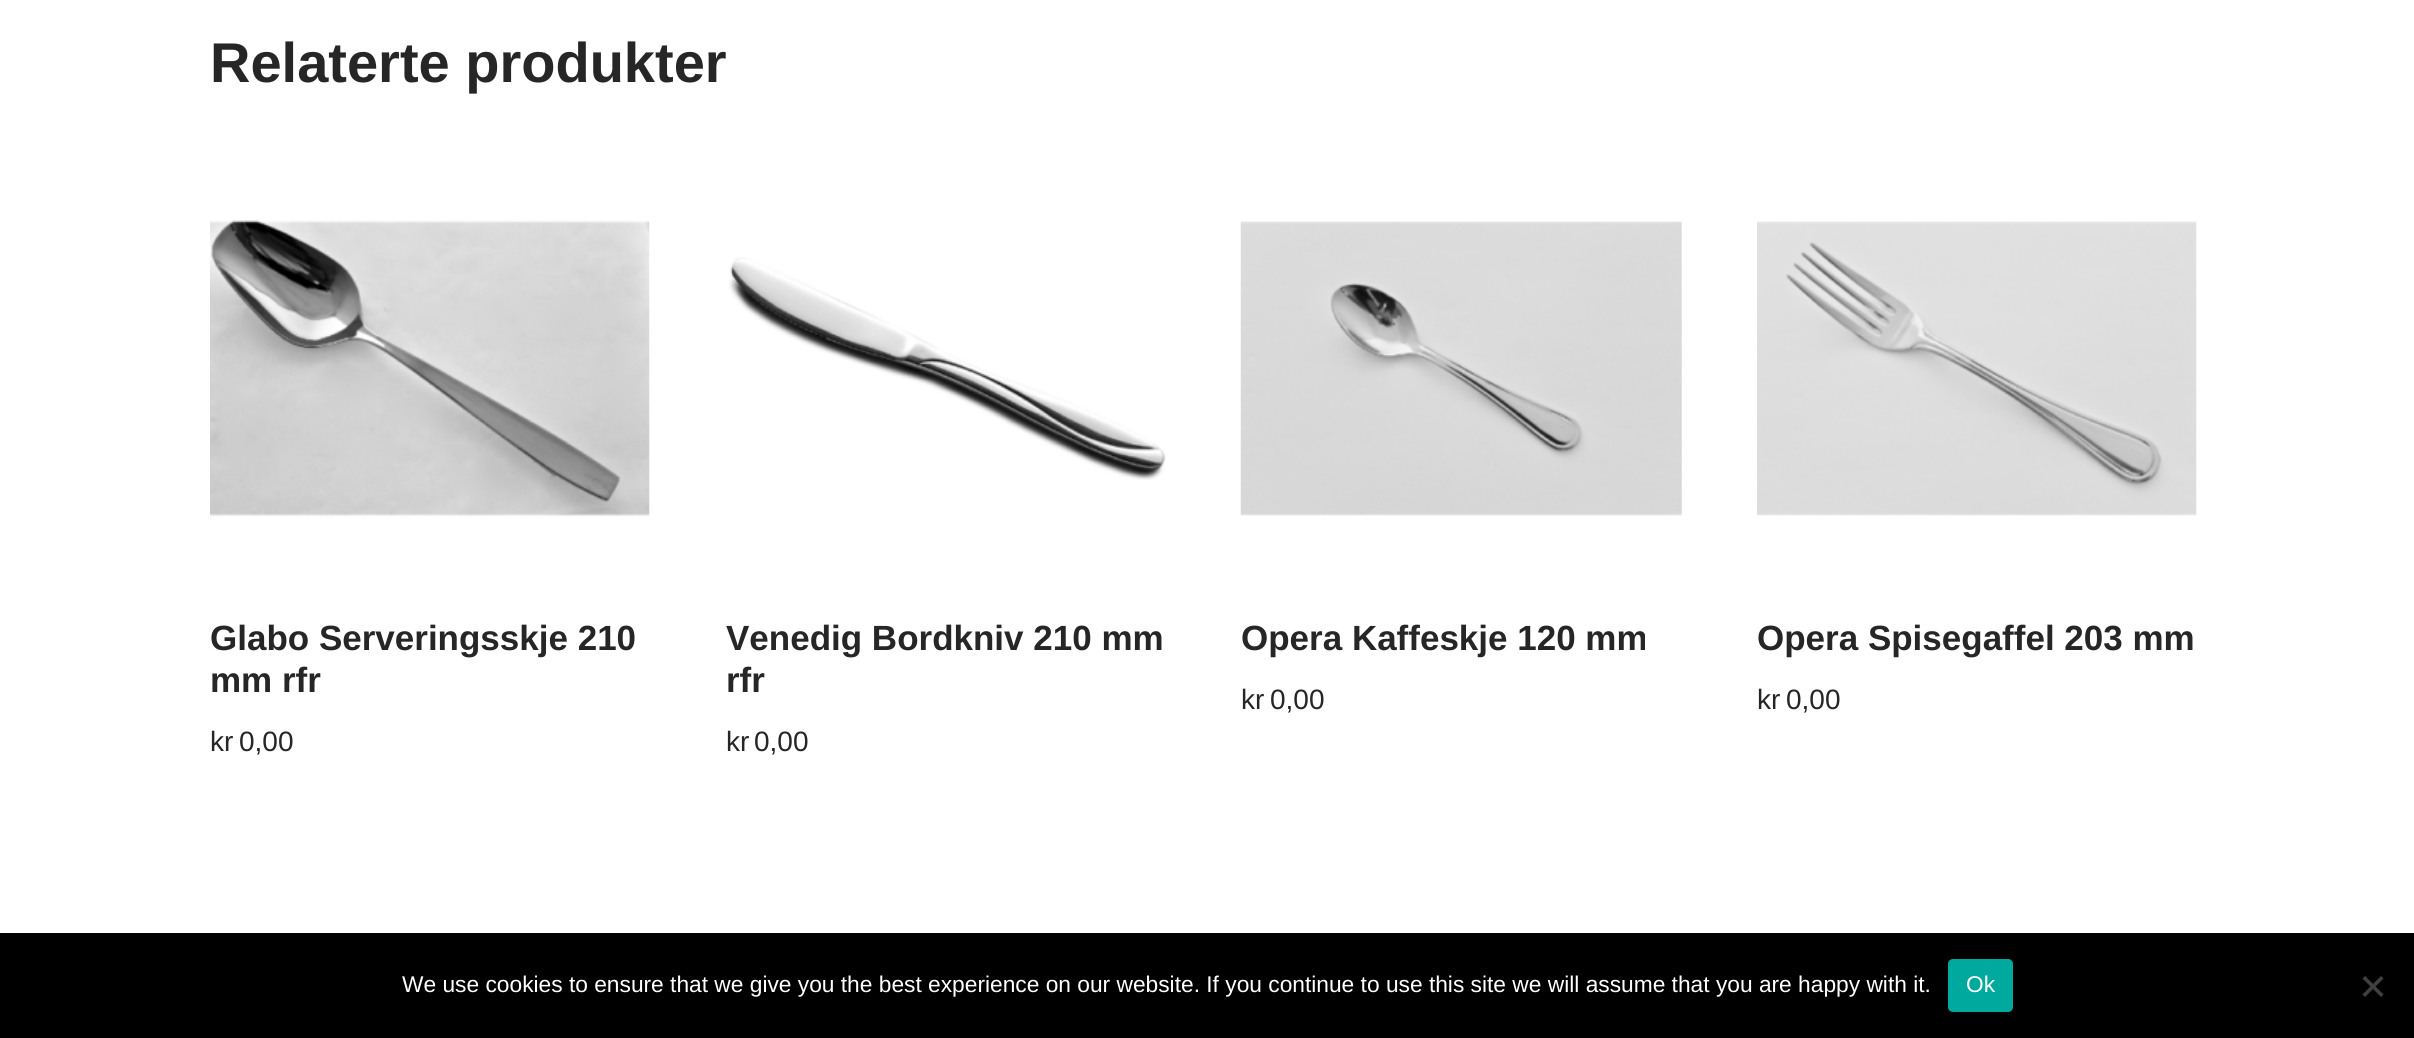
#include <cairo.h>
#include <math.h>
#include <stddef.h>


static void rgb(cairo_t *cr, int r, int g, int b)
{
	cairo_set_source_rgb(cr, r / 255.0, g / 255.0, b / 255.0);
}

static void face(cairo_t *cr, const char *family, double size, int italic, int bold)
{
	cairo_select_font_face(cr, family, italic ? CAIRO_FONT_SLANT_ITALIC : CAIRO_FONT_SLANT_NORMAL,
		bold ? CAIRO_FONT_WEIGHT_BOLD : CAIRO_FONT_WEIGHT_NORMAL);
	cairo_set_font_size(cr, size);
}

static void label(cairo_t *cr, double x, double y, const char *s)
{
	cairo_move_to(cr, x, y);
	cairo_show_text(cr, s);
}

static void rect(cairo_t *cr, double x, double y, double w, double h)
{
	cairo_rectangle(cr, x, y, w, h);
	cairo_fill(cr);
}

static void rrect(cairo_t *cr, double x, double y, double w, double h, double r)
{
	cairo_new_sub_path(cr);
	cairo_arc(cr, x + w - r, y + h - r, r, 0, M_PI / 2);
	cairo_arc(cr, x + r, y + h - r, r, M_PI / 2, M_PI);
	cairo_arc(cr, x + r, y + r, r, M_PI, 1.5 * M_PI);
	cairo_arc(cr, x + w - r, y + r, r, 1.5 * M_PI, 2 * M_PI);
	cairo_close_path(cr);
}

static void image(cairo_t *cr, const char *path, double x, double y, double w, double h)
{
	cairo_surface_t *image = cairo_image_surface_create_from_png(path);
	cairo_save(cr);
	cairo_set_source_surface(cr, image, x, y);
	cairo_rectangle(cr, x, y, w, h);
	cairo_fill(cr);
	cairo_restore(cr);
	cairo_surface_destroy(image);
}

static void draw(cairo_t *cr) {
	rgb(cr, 255, 255, 255);
	cairo_paint(cr);
	face(cr, "Liberation Sans", 56, 0, 1);
	rgb(cr, 39, 38, 38);
	label(cr, 210, 82, "Relaterte produkter");
	image(cr, "image0.png", 210, 220, 440, 297);
	face(cr, "Liberation Sans", 35, 0, 1);
	label(cr, 210, 650, "Glabo Serveringsskje 210");
	label(cr, 210, 692, "mm rfr");
	face(cr, "Liberation Sans", 28, 0, 0);
	label(cr, 210, 751, "kr");
	label(cr, 239, 751, "0,00");
	image(cr, "image1.png", 729, 257, 437, 223);
	face(cr, "Liberation Sans", 35, 0, 1);
	label(cr, 726, 650, "Venedig Bordkniv 210 mm");
	label(cr, 726, 692, "rfr");
	face(cr, "Liberation Sans", 28, 0, 0);
	label(cr, 726, 751, "kr");
	label(cr, 754, 751, "0,00");
	image(cr, "image2.png", 1240, 221, 442, 295);
	face(cr, "Liberation Sans", 35, 0, 1);
	label(cr, 1241, 650, "Opera Kaffeskje 120 mm");
	face(cr, "Liberation Sans", 28, 0, 0);
	label(cr, 1241, 709, "kr");
	label(cr, 1270, 709, "0,00");
	image(cr, "image3.png", 1757, 221, 440, 295);
	face(cr, "Liberation Sans", 35, 0, 1);
	label(cr, 1757, 650, "Opera Spisegaffel 203 mm");
	face(cr, "Liberation Sans", 28, 0, 0);
	label(cr, 1757, 709, "kr");
	label(cr, 1786, 709, "0,00");
	rgb(cr, 0, 0, 0);
	rect(cr, 0, 933, 2414, 105);
	face(cr, "Liberation Sans", 22.75, 0, 0);
	rgb(cr, 255, 255, 255);
	label(cr, 402, 992, "We use cookies to ensure that we give you the best experience on our website. If you continue to use this site we will assume that you are happy with it.");
	rgb(cr, 0, 169, 157);
	rrect(cr, 1948, 959, 65, 53, 5);
	cairo_fill(cr);
	rgb(cr, 255, 255, 255);
	label(cr, 1966, 992, "Ok");
	rgb(cr, 64, 64, 64);
	cairo_new_path(cr);
	cairo_move_to(cr, 2381, 976);
	cairo_line_to(cr, 2383.5, 978.5);
	cairo_line_to(cr, 2365, 997);
	cairo_line_to(cr, 2362.5, 994.5);
	cairo_close_path(cr);
	cairo_fill(cr);
	cairo_new_path(cr);
	cairo_move_to(cr, 2362.5, 978.5);
	cairo_line_to(cr, 2365, 976);
	cairo_line_to(cr, 2383.5, 994.5);
	cairo_line_to(cr, 2381, 997);
	cairo_close_path(cr);
	cairo_fill(cr);
}

int main(void) {
	cairo_surface_t *surface = cairo_image_surface_create(CAIRO_FORMAT_RGB24, 2414, 1038);
	cairo_t *cr = cairo_create(surface);
	cairo_font_options_t *options = cairo_font_options_create();
	cairo_font_options_set_hint_metrics(options, CAIRO_HINT_METRICS_OFF);
	cairo_font_options_set_hint_style(options, CAIRO_HINT_STYLE_NONE);
	cairo_set_font_options(cr, options);
	cairo_set_miter_limit(cr, 4);
	draw(cr);
	cairo_surface_write_to_png(surface, "render.png");
	cairo_font_options_destroy(options);
	cairo_destroy(cr);
	cairo_surface_destroy(surface);
	return 0;
}
